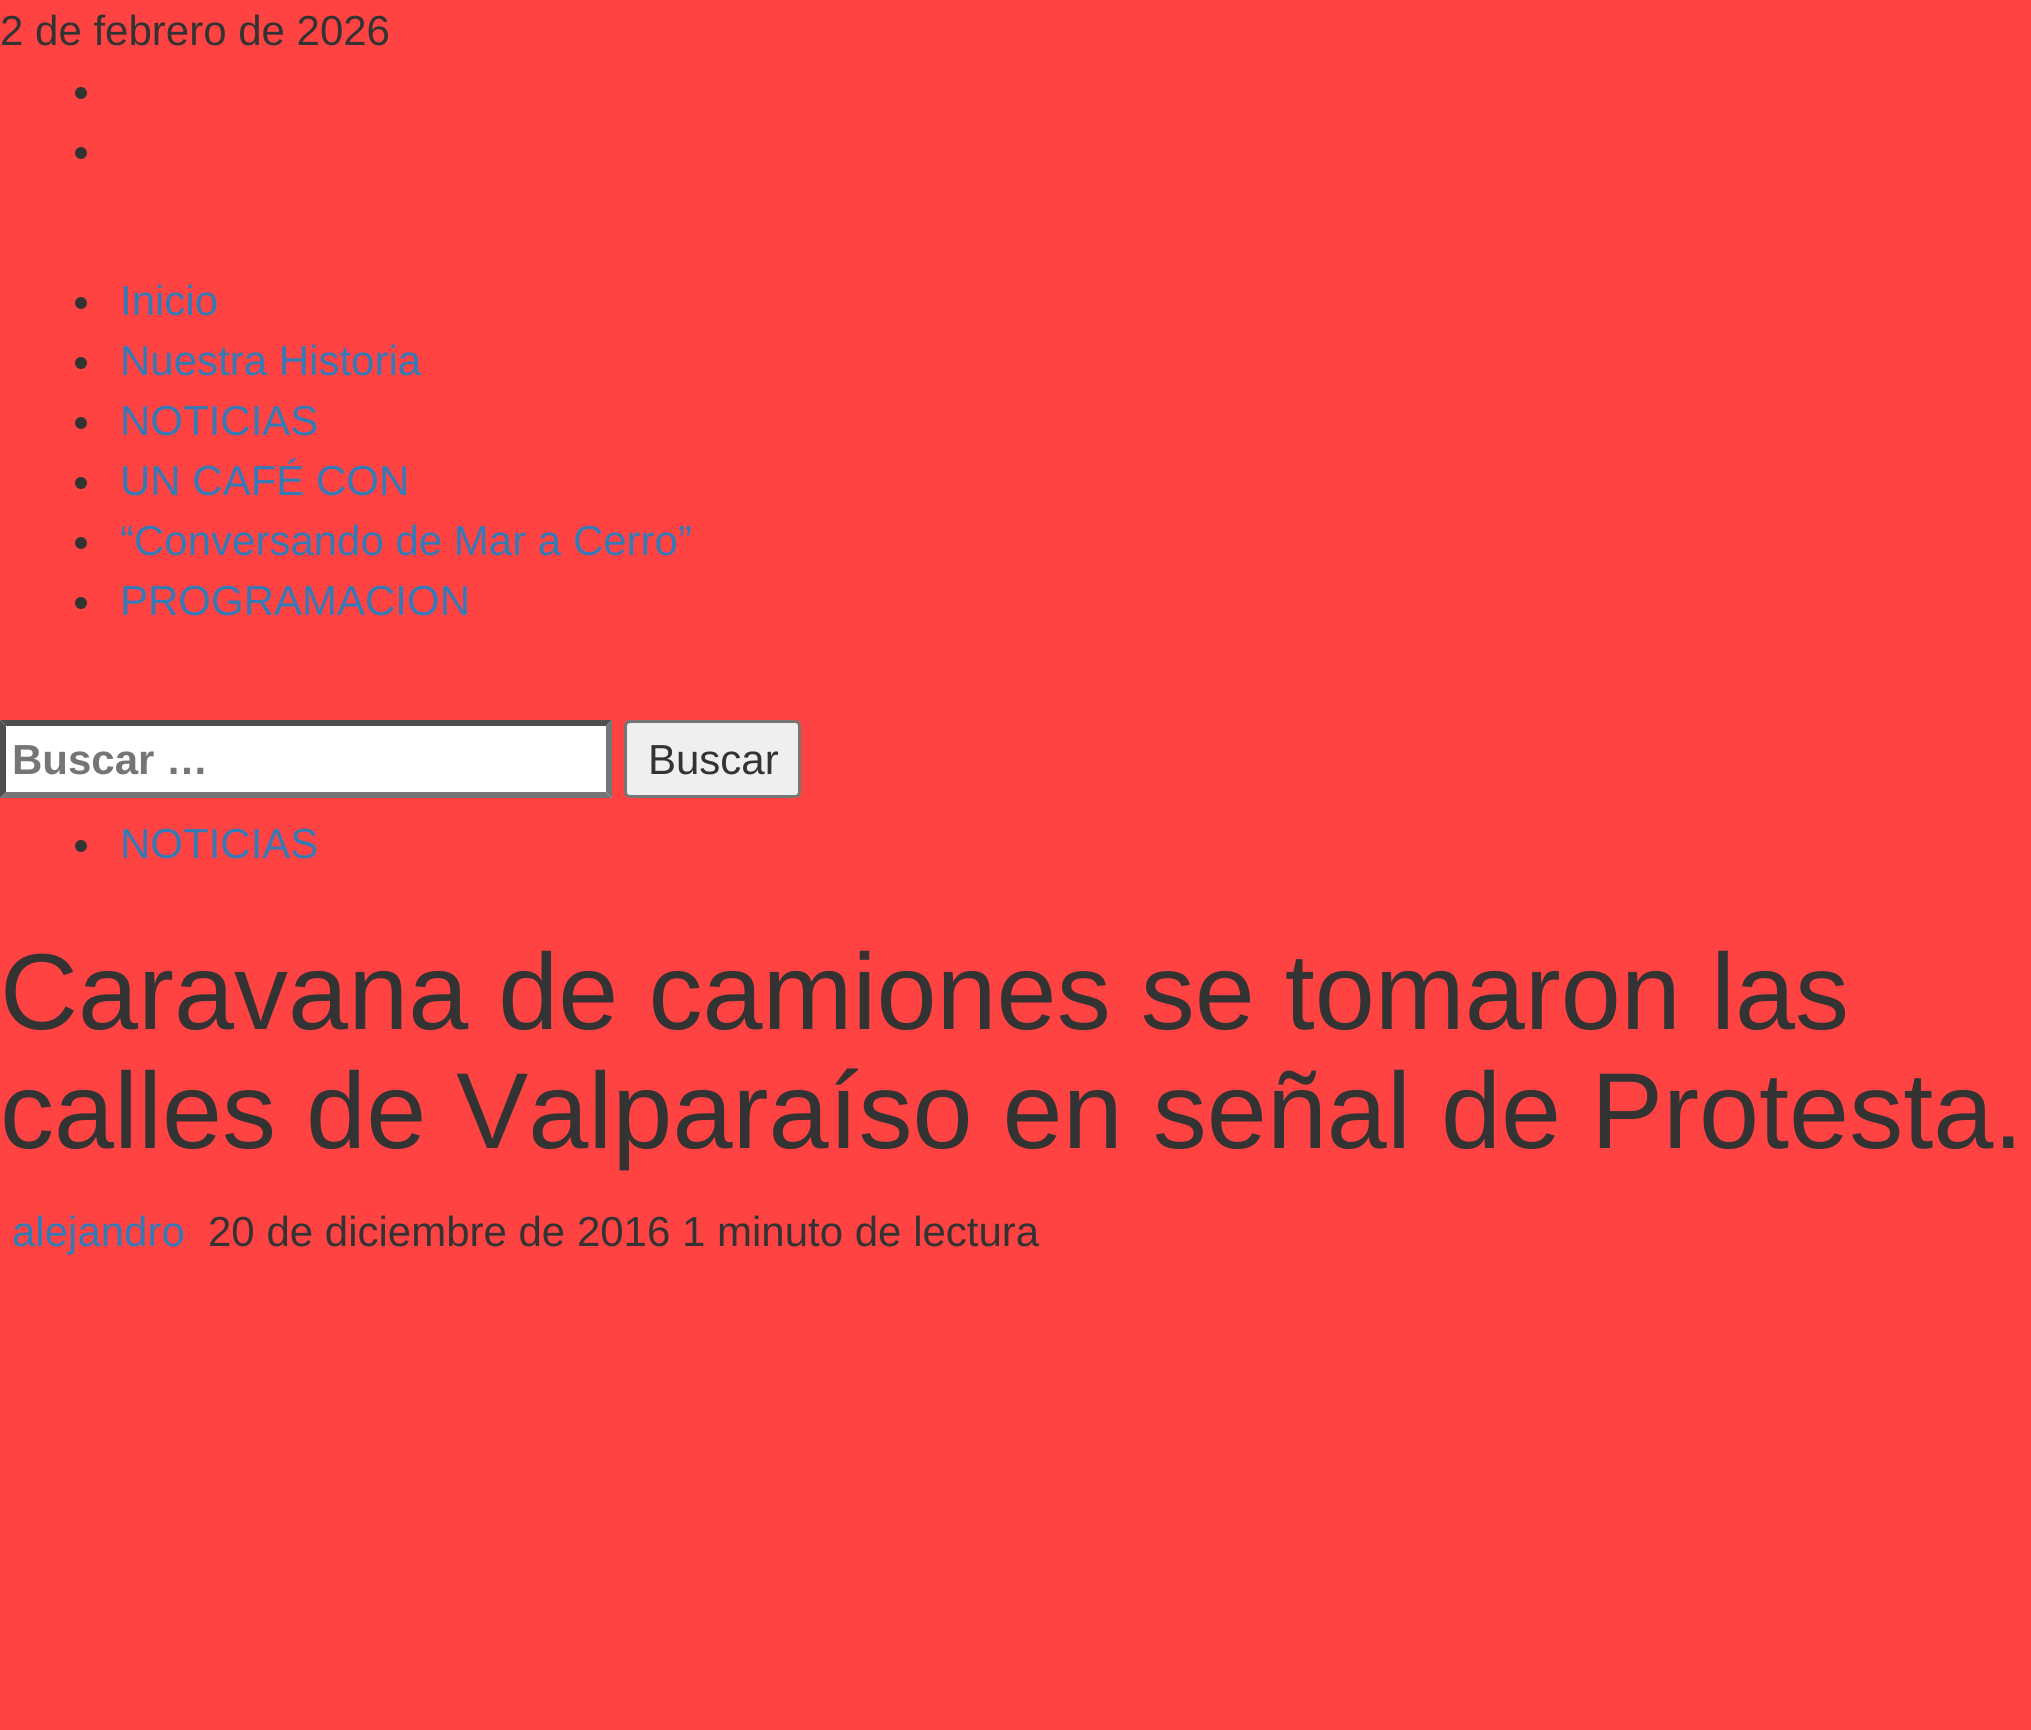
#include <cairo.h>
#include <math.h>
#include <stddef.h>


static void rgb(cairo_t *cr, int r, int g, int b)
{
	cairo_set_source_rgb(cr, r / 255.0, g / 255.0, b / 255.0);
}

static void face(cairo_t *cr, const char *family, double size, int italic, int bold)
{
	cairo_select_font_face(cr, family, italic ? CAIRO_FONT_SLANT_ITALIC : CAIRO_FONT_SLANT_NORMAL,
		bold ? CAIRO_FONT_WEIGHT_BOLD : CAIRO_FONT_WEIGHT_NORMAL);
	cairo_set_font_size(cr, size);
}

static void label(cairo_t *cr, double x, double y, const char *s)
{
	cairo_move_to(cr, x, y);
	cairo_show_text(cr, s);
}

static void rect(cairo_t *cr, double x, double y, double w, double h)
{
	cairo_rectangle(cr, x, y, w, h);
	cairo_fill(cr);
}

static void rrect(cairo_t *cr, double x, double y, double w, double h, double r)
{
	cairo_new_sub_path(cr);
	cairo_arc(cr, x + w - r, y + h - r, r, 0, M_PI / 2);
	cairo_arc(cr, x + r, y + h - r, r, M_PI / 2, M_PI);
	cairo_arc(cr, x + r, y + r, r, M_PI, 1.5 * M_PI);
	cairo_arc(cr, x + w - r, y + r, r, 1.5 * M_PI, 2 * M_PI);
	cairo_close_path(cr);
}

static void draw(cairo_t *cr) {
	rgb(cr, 255, 66, 66);
	cairo_paint(cr);
	face(cr, "Liberation Sans", 42, 0, 0);
	rgb(cr, 51, 51, 51);
	label(cr, 0, 45, "2 de febrero de 2026");
	cairo_new_path(cr);
	cairo_arc(cr, 81, 93, 6, 0, 2 * M_PI);
	cairo_fill(cr);
	cairo_arc(cr, 81, 153, 6, 0, 2 * M_PI);
	cairo_fill(cr);
	cairo_arc(cr, 81, 303, 6, 0, 2 * M_PI);
	cairo_fill(cr);
	rgb(cr, 51, 122, 183);
	label(cr, 120, 315, "Inicio");
	rgb(cr, 51, 51, 51);
	cairo_new_path(cr);
	cairo_arc(cr, 81, 363, 6, 0, 2 * M_PI);
	cairo_fill(cr);
	rgb(cr, 51, 122, 183);
	label(cr, 120, 375, "Nuestra Historia");
	rgb(cr, 51, 51, 51);
	cairo_new_path(cr);
	cairo_arc(cr, 81, 423, 6, 0, 2 * M_PI);
	cairo_fill(cr);
	rgb(cr, 51, 122, 183);
	label(cr, 120, 435, "NOTICIAS");
	rgb(cr, 51, 51, 51);
	cairo_new_path(cr);
	cairo_arc(cr, 81, 483, 6, 0, 2 * M_PI);
	cairo_fill(cr);
	rgb(cr, 51, 122, 183);
	label(cr, 120, 495, "UN CAFÉ CON");
	rgb(cr, 51, 51, 51);
	cairo_new_path(cr);
	cairo_arc(cr, 81, 543, 6, 0, 2 * M_PI);
	cairo_fill(cr);
	rgb(cr, 51, 122, 183);
	label(cr, 120, 555, "“Conversando de Mar a Cerro”");
	rgb(cr, 51, 51, 51);
	cairo_new_path(cr);
	cairo_arc(cr, 81, 603, 6, 0, 2 * M_PI);
	cairo_fill(cr);
	rgb(cr, 51, 122, 183);
	label(cr, 120, 615, "PROGRAMACION");
	rgb(cr, 255, 255, 255);
	rect(cr, 0, 720, 612, 78);
	rgb(cr, 79, 79, 79);
	cairo_new_path(cr);
	cairo_move_to(cr, 0, 720);
	cairo_line_to(cr, 612, 720);
	cairo_line_to(cr, 606, 726);
	cairo_line_to(cr, 6, 726);
	cairo_close_path(cr);
	cairo_fill(cr);
	rgb(cr, 118, 118, 118);
	cairo_new_path(cr);
	cairo_move_to(cr, 612, 720);
	cairo_line_to(cr, 612, 798);
	cairo_line_to(cr, 606, 792);
	cairo_line_to(cr, 606, 726);
	cairo_close_path(cr);
	cairo_fill(cr);
	cairo_new_path(cr);
	cairo_move_to(cr, 612, 798);
	cairo_line_to(cr, 0, 798);
	cairo_line_to(cr, 6, 792);
	cairo_line_to(cr, 606, 792);
	cairo_close_path(cr);
	cairo_fill(cr);
	rgb(cr, 79, 79, 79);
	cairo_new_path(cr);
	cairo_move_to(cr, 0, 798);
	cairo_line_to(cr, 0, 720);
	cairo_line_to(cr, 6, 726);
	cairo_line_to(cr, 6, 792);
	cairo_close_path(cr);
	cairo_fill(cr);
	face(cr, "Liberation Sans", 42, 0, 1);
	rgb(cr, 117, 117, 117);
	label(cr, 12, 774, "Buscar …");
	rgb(cr, 239, 239, 239);
	rrect(cr, 625.5, 721.5, 174, 75, 4.5);
	cairo_fill_preserve(cr);
	rgb(cr, 118, 118, 118);
	cairo_set_line_width(cr, 3);
	cairo_stroke(cr);
	face(cr, "Liberation Sans", 42, 0, 0);
	rgb(cr, 51, 51, 51);
	label(cr, 648, 774, "Buscar");
	cairo_new_path(cr);
	cairo_arc(cr, 81, 846, 6, 0, 2 * M_PI);
	cairo_fill(cr);
	rgb(cr, 51, 122, 183);
	label(cr, 120, 858, "NOTICIAS");
	face(cr, "Liberation Sans", 108, 0, 0);
	rgb(cr, 51, 51, 51);
	label(cr, 0, 1029, "Caravana de camiones se tomaron las");
	label(cr, 0, 1148, "calles de Valparaíso en señal de Protesta.");
	face(cr, "Liberation Sans", 42, 0, 0);
	rgb(cr, 51, 122, 183);
	label(cr, 12, 1246, "alejandro");
	rgb(cr, 51, 51, 51);
	label(cr, 208, 1246, "20 de diciembre de 2016 1 minuto de lectura");
}

int main(void) {
	cairo_surface_t *surface = cairo_image_surface_create(CAIRO_FORMAT_RGB24, 2031, 1730);
	cairo_t *cr = cairo_create(surface);
	cairo_font_options_t *options = cairo_font_options_create();
	cairo_font_options_set_hint_metrics(options, CAIRO_HINT_METRICS_OFF);
	cairo_font_options_set_hint_style(options, CAIRO_HINT_STYLE_NONE);
	cairo_set_font_options(cr, options);
	cairo_set_miter_limit(cr, 4);
	draw(cr);
	cairo_surface_write_to_png(surface, "render.png");
	cairo_font_options_destroy(options);
	cairo_destroy(cr);
	cairo_surface_destroy(surface);
	return 0;
}
